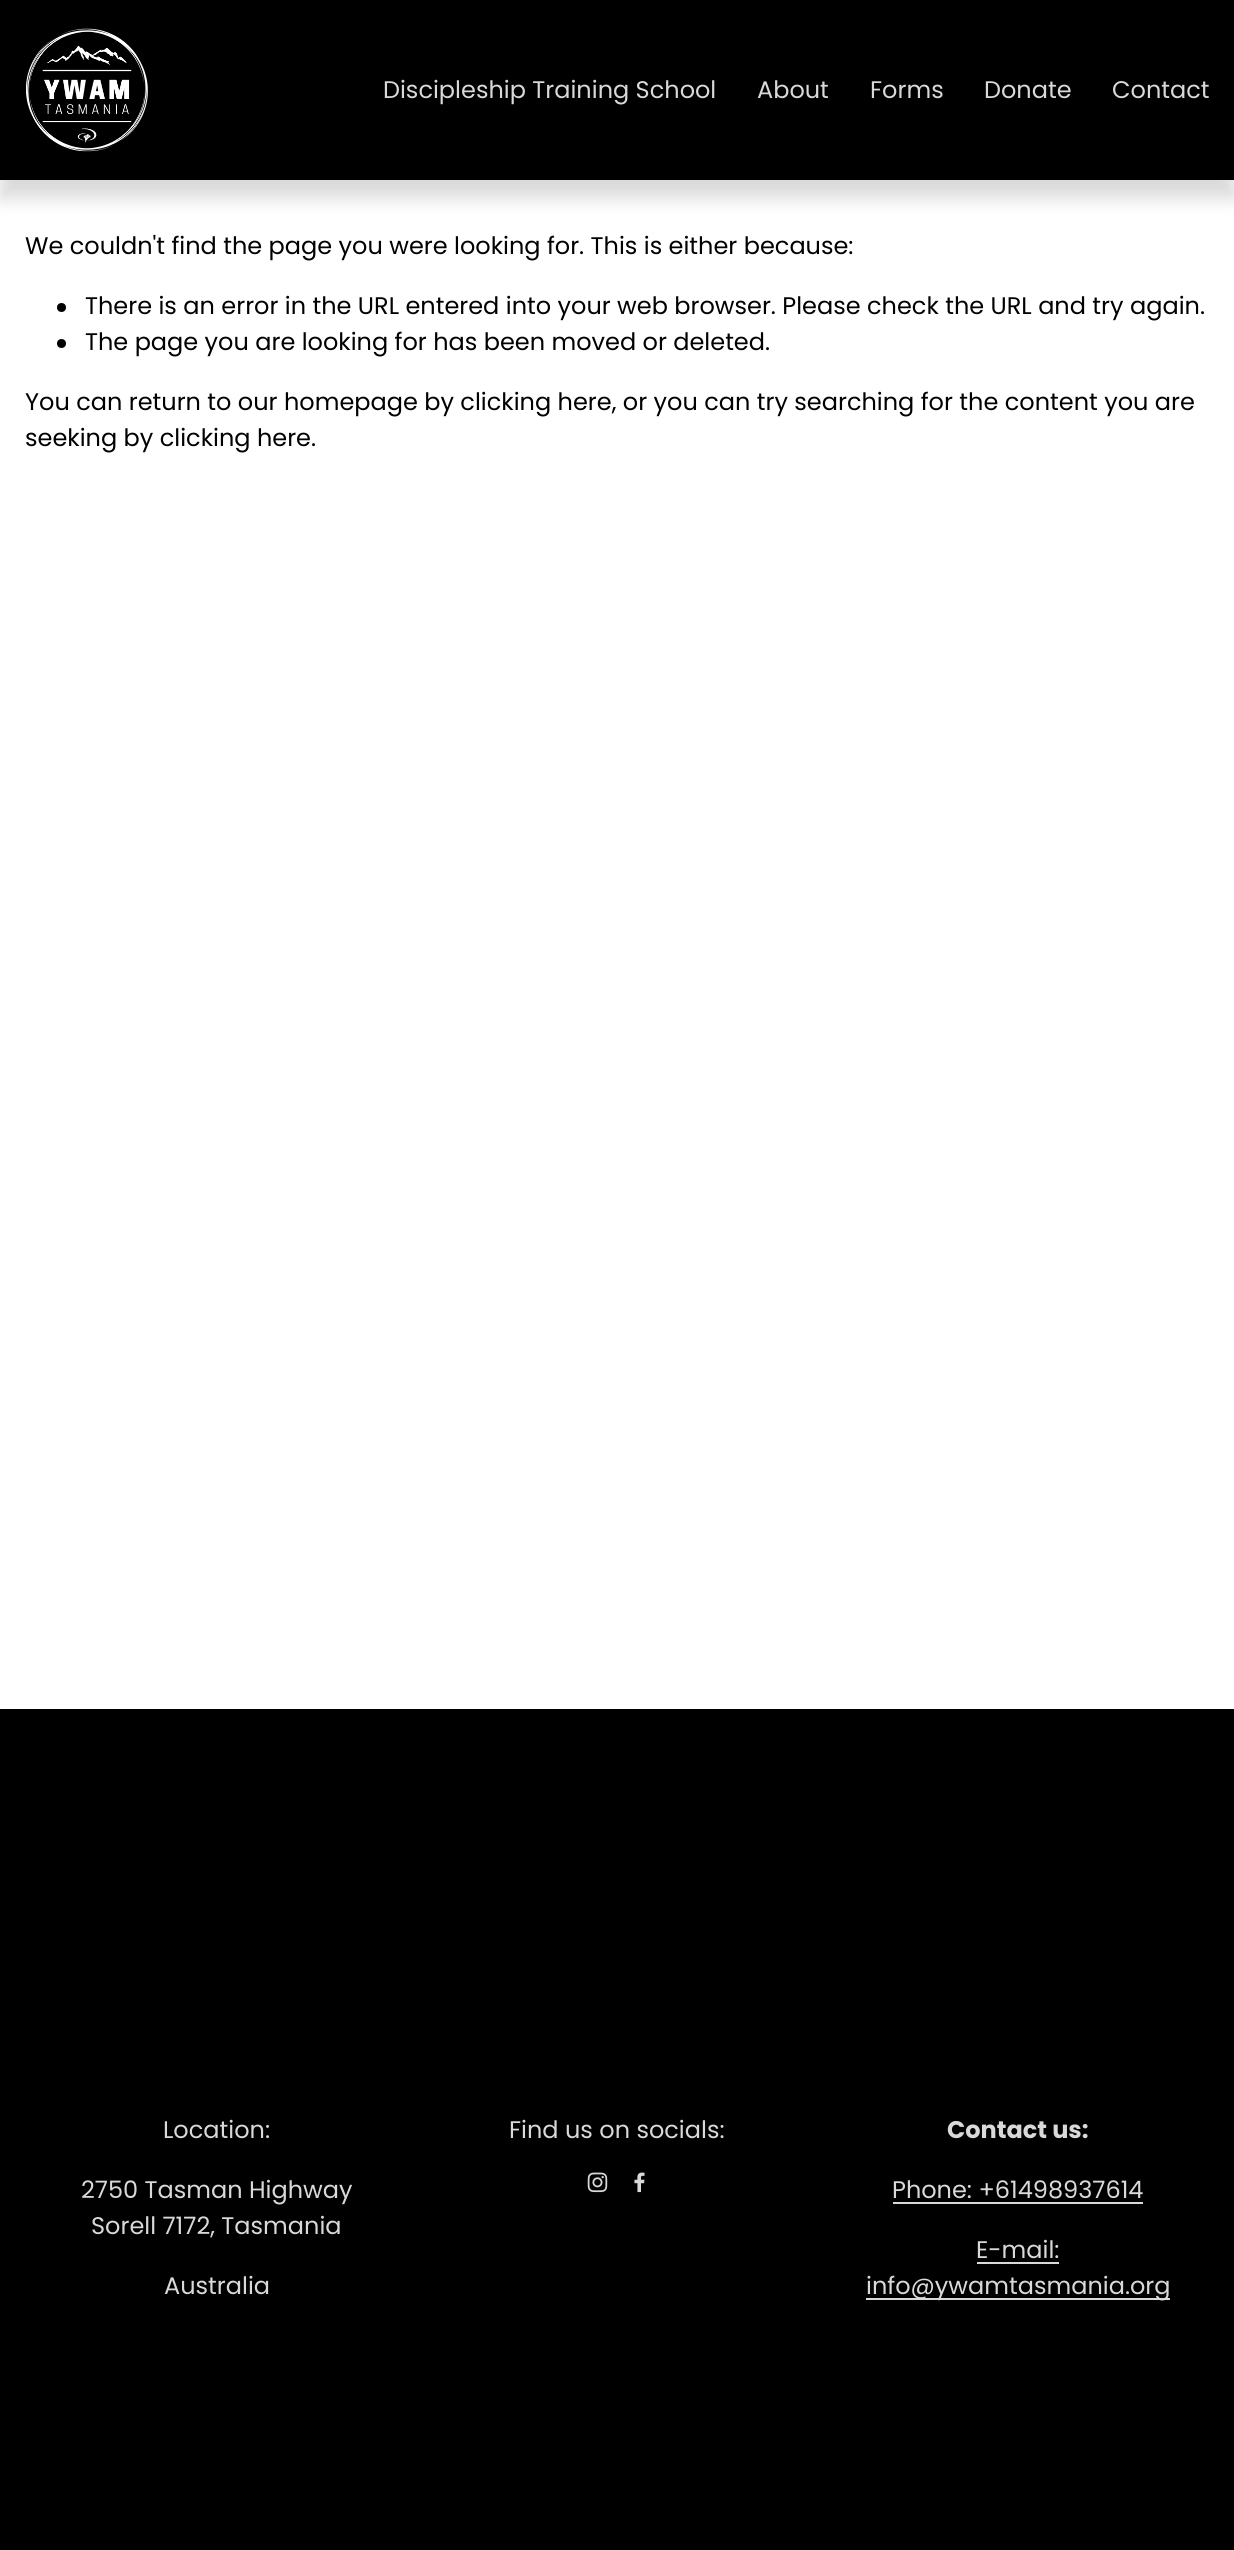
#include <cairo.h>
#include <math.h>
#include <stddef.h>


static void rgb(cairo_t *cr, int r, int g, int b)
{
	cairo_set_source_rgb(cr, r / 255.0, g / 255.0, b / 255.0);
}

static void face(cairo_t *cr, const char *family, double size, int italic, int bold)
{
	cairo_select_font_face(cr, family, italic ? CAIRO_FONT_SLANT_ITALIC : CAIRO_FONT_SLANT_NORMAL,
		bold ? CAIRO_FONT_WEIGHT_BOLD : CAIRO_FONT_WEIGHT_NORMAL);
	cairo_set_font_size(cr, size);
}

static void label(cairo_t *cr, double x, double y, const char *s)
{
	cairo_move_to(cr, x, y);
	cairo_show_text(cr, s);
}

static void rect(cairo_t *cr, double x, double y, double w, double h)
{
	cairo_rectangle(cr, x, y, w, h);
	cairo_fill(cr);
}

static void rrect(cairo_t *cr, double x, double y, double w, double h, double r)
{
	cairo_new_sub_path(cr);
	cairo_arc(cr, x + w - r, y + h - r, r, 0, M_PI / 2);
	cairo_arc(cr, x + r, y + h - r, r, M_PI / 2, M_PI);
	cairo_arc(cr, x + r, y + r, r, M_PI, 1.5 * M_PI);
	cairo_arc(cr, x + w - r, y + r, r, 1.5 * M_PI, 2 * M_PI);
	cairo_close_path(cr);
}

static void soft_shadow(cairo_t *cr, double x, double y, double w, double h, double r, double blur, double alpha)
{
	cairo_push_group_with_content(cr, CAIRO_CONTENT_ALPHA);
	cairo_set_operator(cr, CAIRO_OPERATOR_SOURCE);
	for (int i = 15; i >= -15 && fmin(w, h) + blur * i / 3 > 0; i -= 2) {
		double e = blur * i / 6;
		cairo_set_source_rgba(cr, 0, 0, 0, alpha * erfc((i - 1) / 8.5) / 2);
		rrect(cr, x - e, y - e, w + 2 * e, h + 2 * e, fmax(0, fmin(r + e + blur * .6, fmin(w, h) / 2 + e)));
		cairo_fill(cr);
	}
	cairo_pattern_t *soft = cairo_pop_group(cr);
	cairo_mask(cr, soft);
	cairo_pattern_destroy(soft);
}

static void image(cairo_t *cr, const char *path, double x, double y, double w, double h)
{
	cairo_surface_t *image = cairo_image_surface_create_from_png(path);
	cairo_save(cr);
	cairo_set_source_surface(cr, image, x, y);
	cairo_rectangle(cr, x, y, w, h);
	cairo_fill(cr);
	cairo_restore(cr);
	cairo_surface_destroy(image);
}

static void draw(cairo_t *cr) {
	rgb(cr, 255, 255, 255);
	cairo_paint(cr);
	rgb(cr, 0, 0, 0);
	rect(cr, 0, 0, 1234, 180);
	cairo_save(cr);
	cairo_rectangle(cr, 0, 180, 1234, 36);
	cairo_clip(cr);
	rgb(cr, 217, 217, 217);
	soft_shadow(cr, 0, 18, 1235, 180, 0, 9, 1);
	cairo_restore(cr);
	image(cr, "image0.png", 26, 28, 122, 124);
	face(cr, "Poppins", 24, 0, 0);
	rgb(cr, 217, 217, 217);
	label(cr, 383, 98, "Discipleship Training School");
	label(cr, 757, 98, "About");
	label(cr, 870, 98, "Forms");
	label(cr, 984, 98, "Donate");
	label(cr, 1112, 98, "Contact");
	rgb(cr, 0, 0, 0);
	label(cr, 25, 254, "We couldn't find the page you were looking for. This is either because:");
	cairo_new_path(cr);
	cairo_arc(cr, 61.5, 307.5, 4.5, 0, 2 * M_PI);
	cairo_fill(cr);
	label(cr, 85, 314, "There is an error in the URL entered into your web browser. Please check the URL and try again.");
	cairo_new_path(cr);
	cairo_arc(cr, 61.5, 343.5, 4.5, 0, 2 * M_PI);
	cairo_fill(cr);
	label(cr, 85, 350, "The page you are looking for has been moved or deleted.");
	label(cr, 25, 410, "You can return to our homepage by clicking here, or you can try searching for the content you are");
	label(cr, 25, 446, "seeking by clicking here.");
	rect(cr, 0, 1709, 1234, 841);
	rgb(cr, 217, 217, 217);
	label(cr, 163, 2138, "Location:");
	label(cr, 81, 2198, "2750 Tasman Highway");
	label(cr, 91, 2234, "Sorell 7172, Tasmania");
	label(cr, 164, 2294, "Australia");
	label(cr, 509, 2138, "Find us on socials:");
	face(cr, "Poppins", 24, 0, 1);
	label(cr, 947, 2138, "Contact us:");
	face(cr, "Poppins", 24, 0, 0);
	label(cr, 892, 2198, "Phone: +61498937614");
	rect(cr, 893, 2202, 250, 2);
	label(cr, 976, 2258, "E-mail:");
	rect(cr, 977, 2262, 82, 2);
	rect(cr, 866, 2298, 304, 2);
	label(cr, 866, 2294, "info@ywamtasmania.org");
	image(cr, "image1.png", 587, 2172, 21, 21);
	image(cr, "image2.png", 634, 2172, 11, 21);
}

int main(void) {
	cairo_surface_t *surface = cairo_image_surface_create(CAIRO_FORMAT_RGB24, 1234, 2550);
	cairo_t *cr = cairo_create(surface);
	cairo_font_options_t *options = cairo_font_options_create();
	cairo_font_options_set_hint_metrics(options, CAIRO_HINT_METRICS_OFF);
	cairo_font_options_set_hint_style(options, CAIRO_HINT_STYLE_NONE);
	cairo_set_font_options(cr, options);
	cairo_set_miter_limit(cr, 4);
	draw(cr);
	cairo_surface_write_to_png(surface, "render.png");
	cairo_font_options_destroy(options);
	cairo_destroy(cr);
	cairo_surface_destroy(surface);
	return 0;
}
